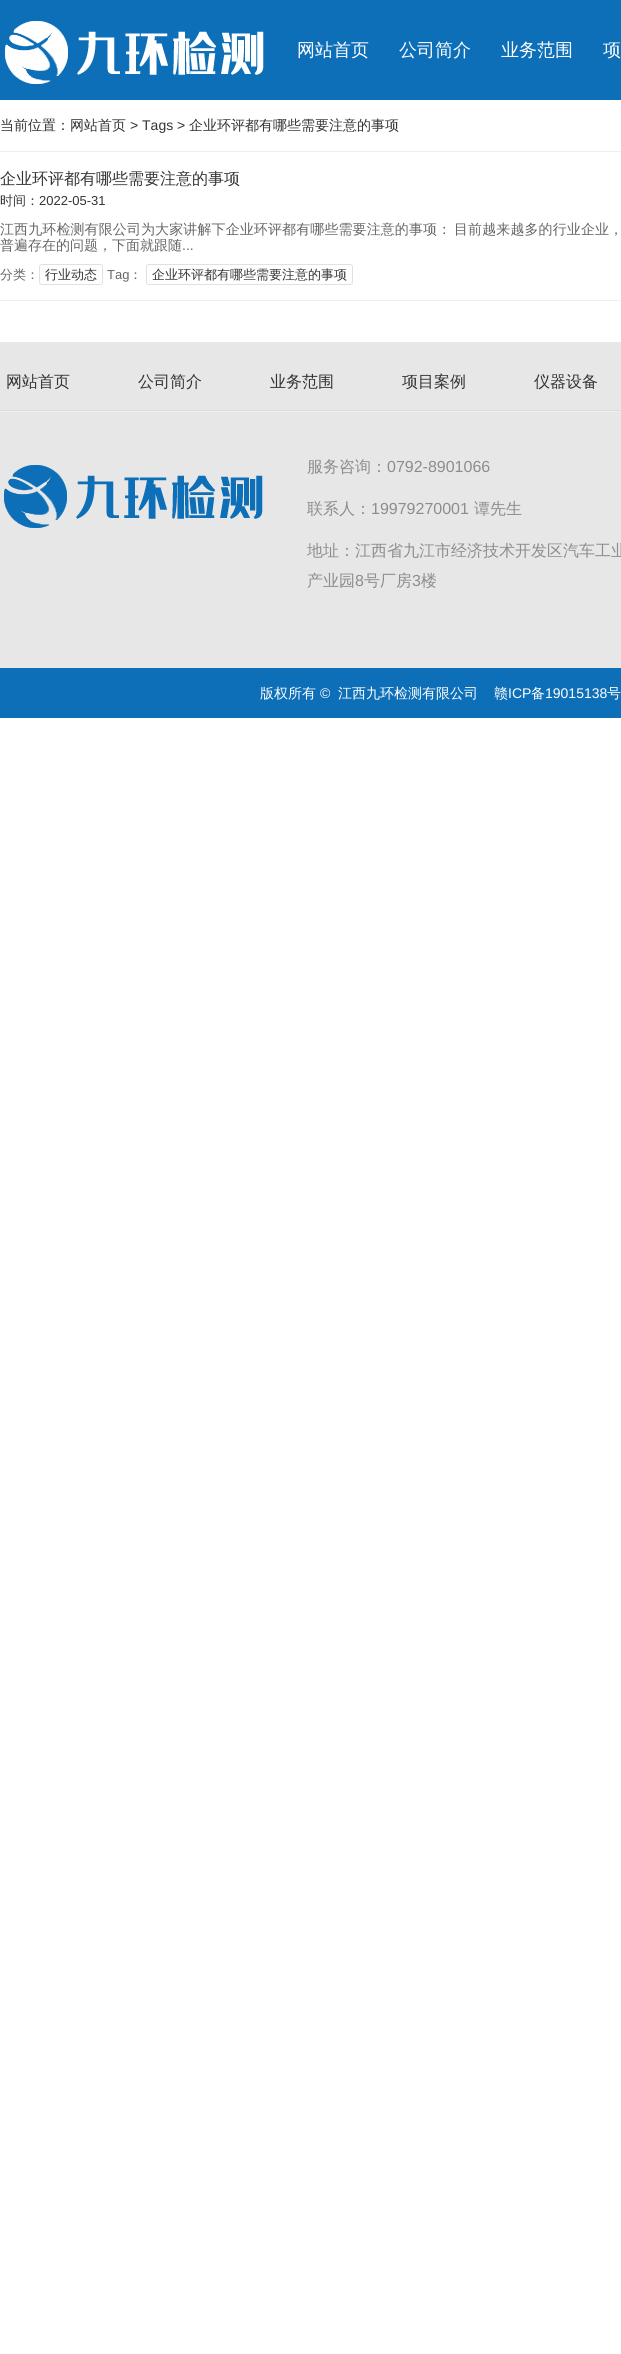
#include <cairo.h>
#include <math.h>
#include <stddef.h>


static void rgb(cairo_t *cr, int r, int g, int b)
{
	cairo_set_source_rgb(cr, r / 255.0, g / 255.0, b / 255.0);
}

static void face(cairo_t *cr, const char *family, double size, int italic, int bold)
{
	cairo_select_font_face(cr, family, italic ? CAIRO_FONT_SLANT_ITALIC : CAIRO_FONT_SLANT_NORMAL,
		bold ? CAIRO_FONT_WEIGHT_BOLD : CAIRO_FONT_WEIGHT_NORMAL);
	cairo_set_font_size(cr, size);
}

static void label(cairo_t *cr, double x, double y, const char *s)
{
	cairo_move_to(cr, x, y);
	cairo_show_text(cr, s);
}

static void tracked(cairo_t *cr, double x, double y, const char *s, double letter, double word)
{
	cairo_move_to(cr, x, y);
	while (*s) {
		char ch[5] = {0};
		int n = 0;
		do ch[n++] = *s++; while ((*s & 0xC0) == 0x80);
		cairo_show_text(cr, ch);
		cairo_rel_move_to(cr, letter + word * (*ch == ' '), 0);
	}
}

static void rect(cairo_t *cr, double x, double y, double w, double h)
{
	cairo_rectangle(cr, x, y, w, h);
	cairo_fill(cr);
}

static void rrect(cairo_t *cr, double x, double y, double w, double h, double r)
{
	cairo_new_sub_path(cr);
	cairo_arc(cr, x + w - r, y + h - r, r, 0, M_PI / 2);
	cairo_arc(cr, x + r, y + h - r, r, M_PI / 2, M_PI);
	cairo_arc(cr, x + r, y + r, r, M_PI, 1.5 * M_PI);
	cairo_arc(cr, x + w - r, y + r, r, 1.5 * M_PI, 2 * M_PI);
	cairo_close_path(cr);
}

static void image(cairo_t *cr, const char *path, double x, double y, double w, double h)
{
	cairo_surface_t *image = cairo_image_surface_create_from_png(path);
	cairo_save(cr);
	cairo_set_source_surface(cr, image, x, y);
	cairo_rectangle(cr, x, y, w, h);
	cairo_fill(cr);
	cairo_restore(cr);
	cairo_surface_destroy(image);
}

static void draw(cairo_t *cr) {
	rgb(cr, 255, 255, 255);
	cairo_paint(cr);
	rgb(cr, 13, 111, 184);
	rect(cr, 0, 0, 621, 100);
	image(cr, "image0.png", 5, 21, 259, 63);
	face(cr, "WenQuanYi Zen Hei Medium", 18, 0, 0);
	rgb(cr, 255, 255, 255);
	label(cr, 297, 56, "网站首页");
	label(cr, 399, 56, "公司简介");
	label(cr, 501, 56, "业务范围");
	label(cr, 603, 56, "项");
	rgb(cr, 238, 238, 238);
	rect(cr, 0, 151, 621, 1);
	face(cr, "WenQuanYi Zen Hei Medium", 14, 0, 0);
	rgb(cr, 51, 51, 51);
	label(cr, 0, 130, "当前位置：网站首页");
	face(cr, "Liberation Sans", 14, 0, 0);
	label(cr, 130, 130, "> Tags >");
	face(cr, "WenQuanYi Zen Hei Medium", 14, 0, 0);
	label(cr, 189, 130, "企业环评都有哪些需要注意的事项");
	rgb(cr, 238, 238, 238);
	rect(cr, 0, 300, 621, 1);
	face(cr, "WenQuanYi Zen Hei Medium", 16, 0, 0);
	rgb(cr, 51, 51, 51);
	label(cr, 0, 184, "企业环评都有哪些需要注意的事项");
	face(cr, "WenQuanYi Zen Hei Medium", 13, 0, 0);
	label(cr, 0, 205, "时间：");
	face(cr, "Liberation Sans", 13, 0, 0);
	label(cr, 39, 205, "2022-05-31");
	face(cr, "WenQuanYi Zen Hei Medium", 14, 0, 0);
	rgb(cr, 102, 102, 102);
	tracked(cr, 0, 234, "江西九环检测有限公司为大家讲解下企业环评都有哪些需要注意的事项：", 0.1, 0);
	tracked(cr, 454, 234, "目前越来越多的行业企业，", 0.1, 0);
	label(cr, 0, 250, "普遍存在的问题，下面就跟随");
	face(cr, "Liberation Sans", 14, 0, 0);
	label(cr, 182, 250, "...");
	face(cr, "WenQuanYi Zen Hei Medium", 13, 0, 0);
	label(cr, 0, 279, "分类：");
	rrect(cr, 39.5, 264.5, 63, 20, 2.5);
	rgb(cr, 225, 225, 225);
	cairo_set_line_width(cr, 1);
	cairo_stroke(cr);
	rgb(cr, 51, 51, 51);
	label(cr, 45, 279, "行业动态");
	face(cr, "Liberation Sans", 13, 0, 0);
	rgb(cr, 102, 102, 102);
	label(cr, 107, 279, "Tag");
	face(cr, "WenQuanYi Zen Hei Medium", 13, 0, 0);
	label(cr, 129, 279, "：");
	rrect(cr, 146.5, 264.5, 206, 20, 2.5);
	rgb(cr, 225, 225, 225);
	cairo_stroke(cr);
	rgb(cr, 51, 51, 51);
	label(cr, 152, 279, "企业环评都有哪些需要注意的事项");
	rgb(cr, 231, 231, 231);
	rect(cr, 0, 342, 621, 326);
	image(cr, "image1.png", 0, 410, 621, 2);
	face(cr, "WenQuanYi Zen Hei Medium", 16, 0, 0);
	rgb(cr, 51, 51, 51);
	label(cr, 6, 387, "网站首页");
	label(cr, 138, 387, "公司简介");
	label(cr, 270, 387, "业务范围");
	label(cr, 402, 387, "项目案例");
	label(cr, 534, 387, "仪器设备");
	image(cr, "image2.png", 4, 465, 259, 63);
	rgb(cr, 141, 141, 141);
	label(cr, 307, 472, "服务咨询：");
	face(cr, "Liberation Sans", 16, 0, 0);
	label(cr, 387, 472, "0792-8901066");
	face(cr, "WenQuanYi Zen Hei Medium", 16, 0, 0);
	label(cr, 307, 514, "联系人：");
	face(cr, "Liberation Sans", 16, 0, 0);
	label(cr, 371, 514, "19979270001");
	face(cr, "WenQuanYi Zen Hei Medium", 16, 0, 0);
	label(cr, 474, 514, "谭先生");
	label(cr, 307, 556, "地址：江西省九江市经济技术开发区汽车工业");
	label(cr, 307, 586, "产业园");
	face(cr, "Liberation Sans", 16, 0, 0);
	label(cr, 355, 586, "8");
	face(cr, "WenQuanYi Zen Hei Medium", 16, 0, 0);
	label(cr, 364, 586, "号厂房");
	face(cr, "Liberation Sans", 16, 0, 0);
	label(cr, 412, 586, "3");
	face(cr, "WenQuanYi Zen Hei Medium", 16, 0, 0);
	label(cr, 421, 586, "楼");
	rgb(cr, 13, 111, 184);
	rect(cr, 0, 668, 621, 50);
	face(cr, "WenQuanYi Zen Hei Medium", 14, 0, 0);
	rgb(cr, 255, 255, 255);
	label(cr, 260, 698, "版权所有");
	face(cr, "Liberation Sans", 14, 0, 0);
	label(cr, 320, 698, "©");
	face(cr, "WenQuanYi Zen Hei Medium", 14, 0, 0);
	label(cr, 338, 698, "江西九环检测有限公司");
	label(cr, 494, 698, "赣");
	face(cr, "Liberation Sans", 14, 0, 0);
	label(cr, 508, 698, "ICP");
	face(cr, "WenQuanYi Zen Hei Medium", 14, 0, 0);
	label(cr, 531, 698, "备");
	face(cr, "Liberation Sans", 14, 0, 0);
	label(cr, 545, 698, "19015138");
	face(cr, "WenQuanYi Zen Hei Medium", 14, 0, 0);
	label(cr, 607, 698, "号");
}

int main(void) {
	cairo_surface_t *surface = cairo_image_surface_create(CAIRO_FORMAT_RGB24, 621, 2354);
	cairo_t *cr = cairo_create(surface);
	cairo_font_options_t *options = cairo_font_options_create();
	cairo_font_options_set_hint_metrics(options, CAIRO_HINT_METRICS_OFF);
	cairo_font_options_set_hint_style(options, CAIRO_HINT_STYLE_NONE);
	cairo_set_font_options(cr, options);
	cairo_set_miter_limit(cr, 4);
	draw(cr);
	cairo_surface_write_to_png(surface, "render.png");
	cairo_font_options_destroy(options);
	cairo_destroy(cr);
	cairo_surface_destroy(surface);
	return 0;
}
